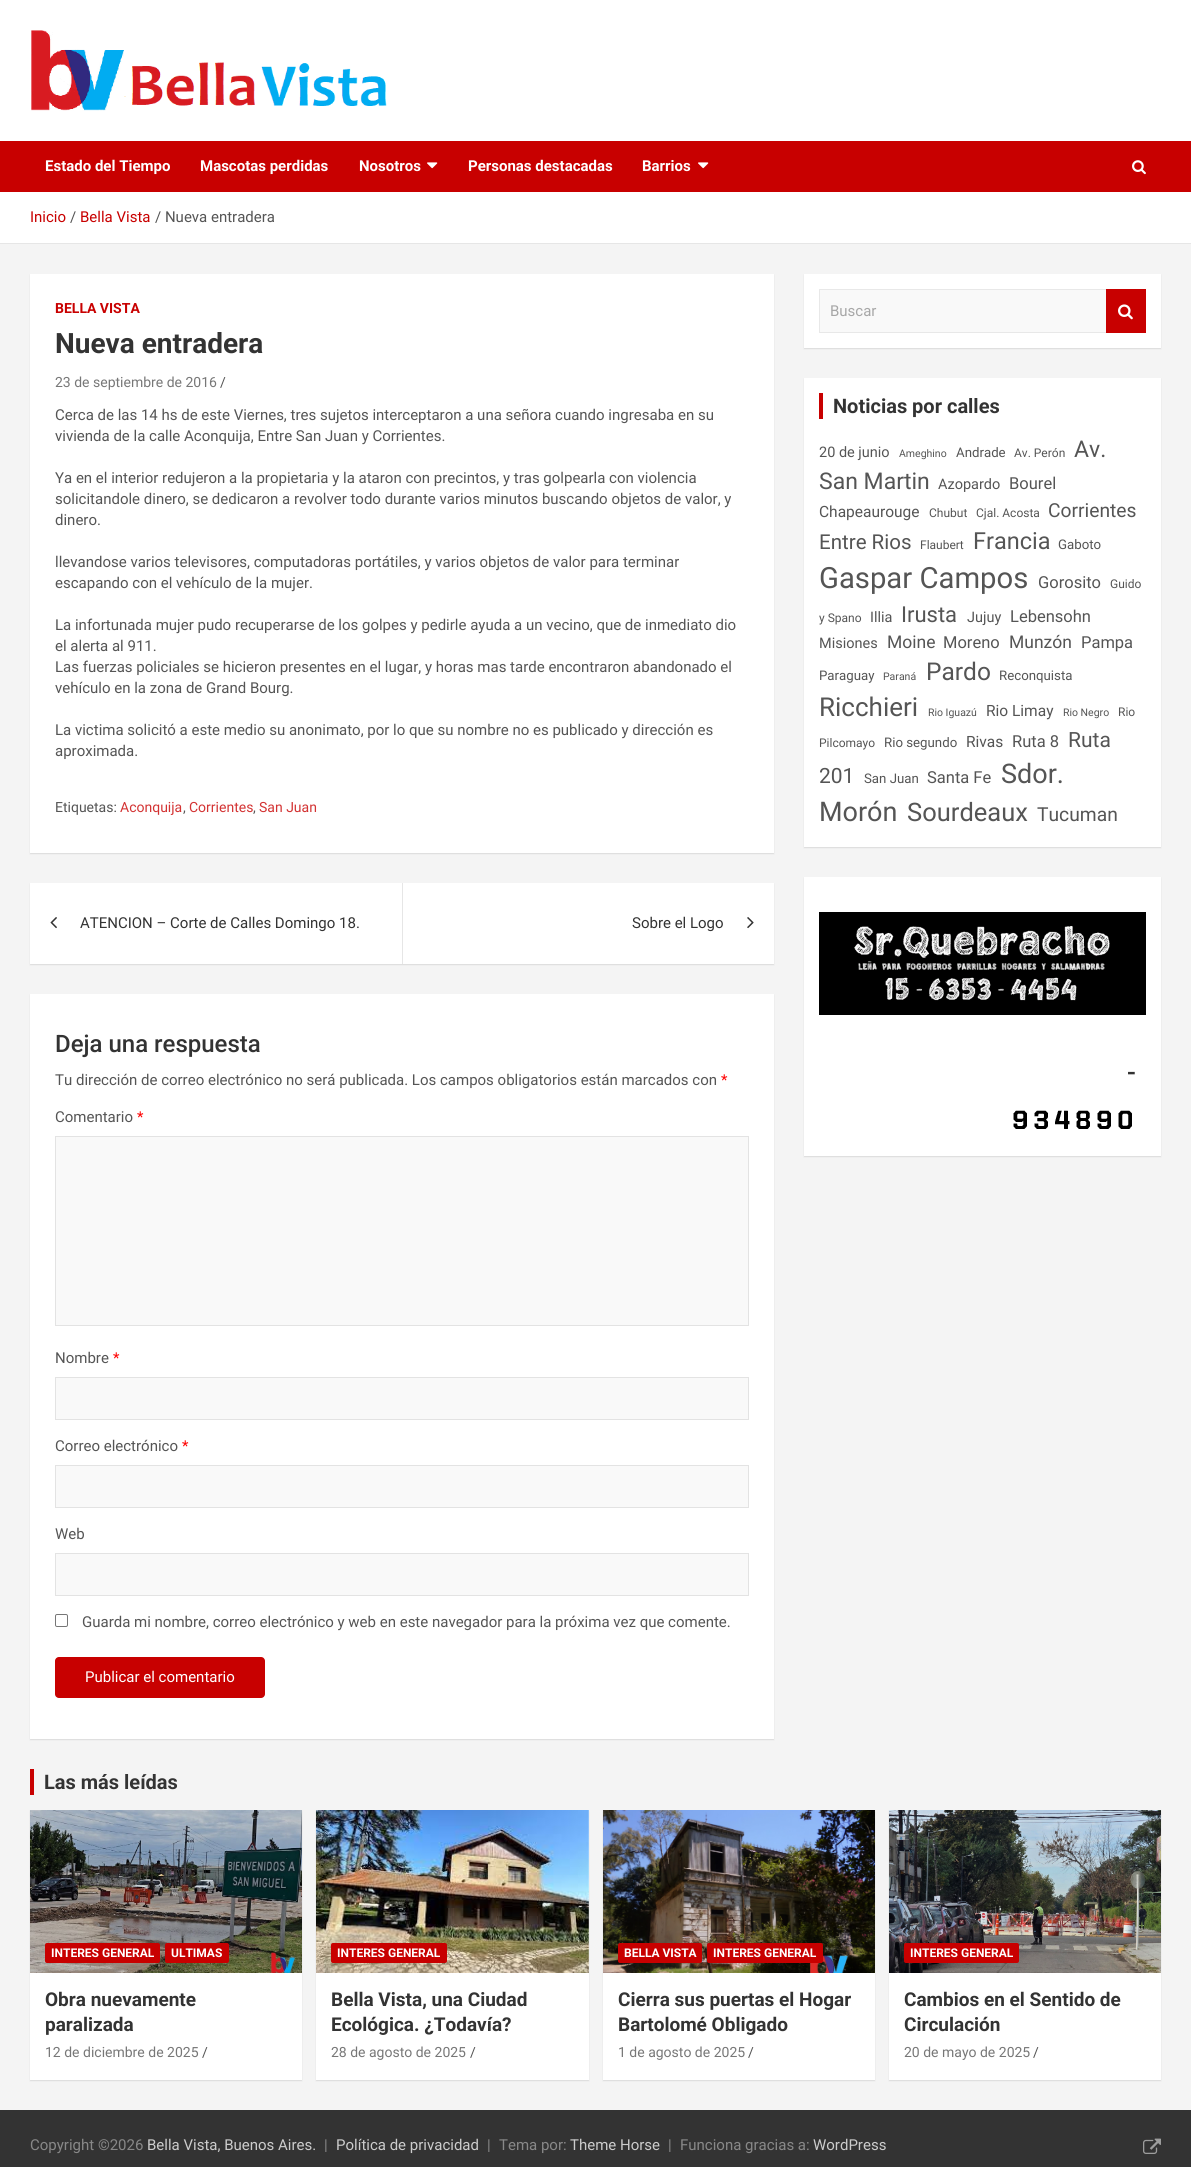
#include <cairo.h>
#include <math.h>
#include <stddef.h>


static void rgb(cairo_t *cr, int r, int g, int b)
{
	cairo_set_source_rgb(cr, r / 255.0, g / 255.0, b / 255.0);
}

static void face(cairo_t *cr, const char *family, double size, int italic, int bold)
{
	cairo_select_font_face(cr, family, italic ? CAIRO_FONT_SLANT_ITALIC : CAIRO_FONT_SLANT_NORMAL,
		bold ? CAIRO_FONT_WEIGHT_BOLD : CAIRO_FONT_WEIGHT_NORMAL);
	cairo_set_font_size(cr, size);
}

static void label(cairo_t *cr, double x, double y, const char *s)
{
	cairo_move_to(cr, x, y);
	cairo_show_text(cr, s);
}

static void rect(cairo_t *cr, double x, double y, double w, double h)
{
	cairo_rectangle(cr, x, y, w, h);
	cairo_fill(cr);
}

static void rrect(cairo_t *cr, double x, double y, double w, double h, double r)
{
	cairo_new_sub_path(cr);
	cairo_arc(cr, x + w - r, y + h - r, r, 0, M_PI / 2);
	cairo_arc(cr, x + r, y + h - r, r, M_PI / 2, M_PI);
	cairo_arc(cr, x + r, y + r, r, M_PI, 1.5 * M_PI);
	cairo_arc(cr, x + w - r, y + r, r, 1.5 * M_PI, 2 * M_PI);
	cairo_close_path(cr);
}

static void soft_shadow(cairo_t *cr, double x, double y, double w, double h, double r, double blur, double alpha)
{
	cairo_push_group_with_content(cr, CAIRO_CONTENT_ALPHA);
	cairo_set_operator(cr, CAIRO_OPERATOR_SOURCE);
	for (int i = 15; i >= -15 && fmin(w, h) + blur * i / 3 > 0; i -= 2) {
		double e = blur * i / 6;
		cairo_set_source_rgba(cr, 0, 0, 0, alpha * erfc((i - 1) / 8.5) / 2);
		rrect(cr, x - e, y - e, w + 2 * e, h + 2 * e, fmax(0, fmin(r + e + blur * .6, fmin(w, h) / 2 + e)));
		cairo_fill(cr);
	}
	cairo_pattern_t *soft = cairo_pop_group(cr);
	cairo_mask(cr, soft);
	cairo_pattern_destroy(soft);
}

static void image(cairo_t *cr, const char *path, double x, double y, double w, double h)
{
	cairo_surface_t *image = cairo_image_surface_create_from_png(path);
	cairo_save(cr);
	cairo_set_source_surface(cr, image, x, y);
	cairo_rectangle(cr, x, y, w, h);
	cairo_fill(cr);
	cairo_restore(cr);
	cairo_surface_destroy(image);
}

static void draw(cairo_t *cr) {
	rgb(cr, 244, 244, 244);
	cairo_paint(cr);
	rgb(cr, 255, 255, 255);
	rect(cr, 0, 0, 1191, 141);
	image(cr, "image0.png", 31, 30, 356, 81);
	rgb(cr, 200, 0, 0);
	rect(cr, 0, 141, 1191, 51);
	face(cr, "Roboto", 15, 0, 1);
	rgb(cr, 255, 255, 255);
	label(cr, 45, 171, "Estado del Tiempo");
	label(cr, 200, 171, "Mascotas perdidas");
	label(cr, 359, 171, "Nosotros");
	image(cr, "image1.png", 427, 162, 11, 7);
	label(cr, 468, 171, "Personas destacadas");
	label(cr, 642, 171, "Barrios");
	image(cr, "image1.png", 698, 162, 11, 7);
	image(cr, "image2.png", 1132, 160, 14, 15);
	rect(cr, 0, 192, 1191, 51);
	rgb(cr, 230, 230, 230);
	rect(cr, 0, 243, 1191, 1);
	face(cr, "Roboto", 15, 0, 0);
	rgb(cr, 200, 0, 0);
	label(cr, 30, 222, "Inicio");
	rgb(cr, 85, 85, 85);
	label(cr, 70, 222, "/");
	rgb(cr, 200, 0, 0);
	label(cr, 80, 222, "Bella Vista");
	rgb(cr, 85, 85, 85);
	label(cr, 155, 222, "/ Nueva entradera");
	rgb(cr, 0, 0, 0);
	soft_shadow(cr, 30, 275, 744, 579, 0, 0.5, 0.1);
	rgb(cr, 255, 255, 255);
	rect(cr, 30, 274, 744, 579);
	face(cr, "Roboto", 14, 0, 1);
	rgb(cr, 200, 0, 0);
	label(cr, 55, 313, "BELLA VISTA");
	face(cr, "Roboto", 28, 0, 1);
	rgb(cr, 51, 51, 51);
	label(cr, 55, 353, "Nueva entradera");
	face(cr, "Roboto", 14, 0, 0);
	rgb(cr, 119, 119, 119);
	label(cr, 55, 387, "23 de septiembre de 2016");
	rgb(cr, 85, 85, 85);
	label(cr, 220, 387, "/");
	face(cr, "Roboto", 15, 0, 0);
	label(cr, 55, 420, "Cerca de las 14 hs de este Viernes, tres sujetos interceptaron a una señora cuando ingresaba en su");
	label(cr, 55, 441, "vivienda de la calle Aconquija, Entre San Juan y Corrientes.");
	label(cr, 55, 483, "Ya en el interior redujeron a la propietaria y la ataron con precintos, y tras golpearla con violencia");
	label(cr, 55, 504, "solicitandole dinero, se dedicaron a revolver todo durante varios minutos buscando objetos de valor, y");
	label(cr, 55, 525, "dinero.");
	label(cr, 55, 567, "llevandose varios televisores, computadoras portátiles, y varios objetos de valor para terminar");
	label(cr, 55, 588, "escapando con el vehículo de la mujer.");
	label(cr, 55, 630, "La infortunada mujer pudo recuperarse de los golpes y pedirle ayuda a un vecino, que de inmediato dio");
	label(cr, 55, 651, "el alerta al 911.");
	label(cr, 55, 672, "Las fuerzas policiales se hicieron presentes en el lugar, y horas mas tarde encontraron abandonado el");
	label(cr, 55, 693, "vehículo en la zona de Grand Bourg.");
	label(cr, 55, 735, "La victima solicitó a este medio su anonimato, por lo que su nombre no es publicado y dirección es");
	label(cr, 55, 756, "aproximada.");
	face(cr, "Roboto", 14, 0, 0);
	label(cr, 55, 812, "Etiquetas:");
	rgb(cr, 211, 51, 51);
	label(cr, 120, 812, "Aconquija");
	rgb(cr, 85, 85, 85);
	label(cr, 183, 812, ",");
	rgb(cr, 211, 51, 51);
	label(cr, 189, 812, "Corrientes");
	rgb(cr, 85, 85, 85);
	label(cr, 253, 812, ",");
	rgb(cr, 211, 51, 51);
	label(cr, 259, 812, "San Juan");
	rgb(cr, 0, 0, 0);
	soft_shadow(cr, 30, 884, 744, 81, 0, 0.5, 0.1);
	rgb(cr, 255, 255, 255);
	rect(cr, 30, 883, 744, 81);
	image(cr, "image3.png", 50, 917, 7, 12);
	face(cr, "Roboto", 15, 0, 0);
	rgb(cr, 51, 51, 51);
	label(cr, 80, 928, "ATENCION – Corte de Calles Domingo 18.");
	rgb(cr, 230, 230, 230);
	rect(cr, 402, 883, 1, 81);
	rgb(cr, 51, 51, 51);
	label(cr, 632, 928, "Sobre el Logo");
	image(cr, "image4.png", 747, 917, 7, 12);
	rgb(cr, 0, 0, 0);
	soft_shadow(cr, 30, 995, 744, 745, 0, 0.5, 0.1);
	rgb(cr, 255, 255, 255);
	rect(cr, 30, 994, 744, 745);
	face(cr, "Roboto Medium", 24, 0, 0);
	rgb(cr, 51, 51, 51);
	label(cr, 55, 1052, "Deja una respuesta");
	face(cr, "Roboto", 15, 0, 0);
	rgb(cr, 85, 85, 85);
	label(cr, 55, 1085, "Tu dirección de correo electrónico no será publicada. Los campos obligatorios están marcados con");
	rgb(cr, 255, 0, 0);
	label(cr, 721, 1085, "*");
	rgb(cr, 85, 85, 85);
	label(cr, 55, 1122, "Comentario");
	rgb(cr, 255, 0, 0);
	label(cr, 137, 1122, "*");
	rgb(cr, 249, 249, 249);
	cairo_rectangle(cr, 55.5, 1136.5, 693, 189);
	cairo_fill_preserve(cr);
	rgb(cr, 227, 227, 227);
	cairo_set_line_width(cr, 1);
	cairo_stroke(cr);
	rgb(cr, 85, 85, 85);
	label(cr, 55, 1363, "Nombre");
	rgb(cr, 255, 0, 0);
	label(cr, 113, 1363, "*");
	rgb(cr, 249, 249, 249);
	cairo_rectangle(cr, 55.5, 1377.5, 693, 42);
	cairo_fill_preserve(cr);
	rgb(cr, 227, 227, 227);
	cairo_stroke(cr);
	rgb(cr, 85, 85, 85);
	label(cr, 55, 1451, "Correo electrónico");
	rgb(cr, 255, 0, 0);
	label(cr, 182, 1451, "*");
	rgb(cr, 249, 249, 249);
	cairo_rectangle(cr, 55.5, 1465.5, 693, 42);
	cairo_fill_preserve(cr);
	rgb(cr, 227, 227, 227);
	cairo_stroke(cr);
	rgb(cr, 85, 85, 85);
	label(cr, 55, 1539, "Web");
	rgb(cr, 249, 249, 249);
	cairo_rectangle(cr, 55.5, 1553.5, 693, 42);
	cairo_fill_preserve(cr);
	rgb(cr, 227, 227, 227);
	cairo_stroke(cr);
	rrect(cr, 55.5, 1614.5, 12, 12, 1.5);
	rgb(cr, 118, 118, 118);
	cairo_stroke(cr);
	rgb(cr, 85, 85, 85);
	label(cr, 82, 1627, "Guarda mi nombre, correo electrónico y web en este navegador para la próxima vez que comente.");
	rgb(cr, 200, 0, 0);
	rrect(cr, 55, 1657, 210, 41, 4);
	cairo_fill(cr);
	rgb(cr, 255, 255, 255);
	label(cr, 85, 1682, "Publicar el comentario");
	rgb(cr, 0, 0, 0);
	soft_shadow(cr, 804, 275, 357, 74, 0, 0.5, 0.1);
	rgb(cr, 255, 255, 255);
	rect(cr, 804, 274, 357, 74);
	rgb(cr, 249, 249, 249);
	rect(cr, 820, 290, 286, 42);
	rgb(cr, 232, 232, 232);
	cairo_new_path(cr);
	cairo_move_to(cr, 819, 289);
	cairo_line_to(cr, 1106, 289);
	cairo_line_to(cr, 1106, 290);
	cairo_line_to(cr, 820, 290);
	cairo_close_path(cr);
	cairo_fill(cr);
	cairo_new_path(cr);
	cairo_move_to(cr, 1106, 333);
	cairo_line_to(cr, 819, 333);
	cairo_line_to(cr, 820, 332);
	cairo_line_to(cr, 1106, 332);
	cairo_close_path(cr);
	cairo_fill(cr);
	cairo_set_source_rgba(cr, 0, 0, 0, 0.09);
	cairo_new_path(cr);
	cairo_move_to(cr, 819, 333);
	cairo_line_to(cr, 819, 289);
	cairo_line_to(cr, 820, 290);
	cairo_line_to(cr, 820, 332);
	cairo_close_path(cr);
	cairo_fill(cr);
	rgb(cr, 167, 167, 167);
	label(cr, 830, 316, "Buscar");
	rgb(cr, 200, 0, 0);
	rect(cr, 1106, 289, 40, 44);
	image(cr, "image5.png", 1118, 304, 15, 16);
	rgb(cr, 0, 0, 0);
	soft_shadow(cr, 804, 379, 357, 469, 0, 0.5, 0.1);
	rgb(cr, 255, 255, 255);
	rect(cr, 804, 378, 357, 469);
	rgb(cr, 200, 0, 0);
	rect(cr, 819, 393, 4, 26);
	face(cr, "Roboto", 20, 0, 1);
	rgb(cr, 51, 51, 51);
	label(cr, 833, 413, "Noticias por calles");
	face(cr, "Roboto", 14.5, 0, 0);
	rgb(cr, 85, 85, 85);
	label(cr, 819, 457, "20 de junio");
	face(cr, "Roboto", 10.5, 0, 0);
	label(cr, 899, 457, "Ameghino");
	face(cr, "Roboto", 13.25, 0, 0);
	label(cr, 956, 457, "Andrade");
	face(cr, "Roboto", 12, 0, 0);
	label(cr, 1014, 457, "Av. Perón");
	face(cr, "Roboto", 23, 0, 0);
	label(cr, 1074, 457, "Av.");
	label(cr, 819, 489, "San Martin");
	face(cr, "Roboto", 14.5, 0, 0);
	label(cr, 938, 489, "Azopardo");
	face(cr, "Roboto", 16.5, 0, 0);
	label(cr, 1009, 489, "Bourel");
	face(cr, "Roboto", 15.5, 0, 0);
	label(cr, 819, 517, "Chapeaurouge");
	face(cr, "Roboto", 12, 0, 0);
	label(cr, 929, 517, "Chubut");
	label(cr, 976, 517, "Cjal. Acosta");
	face(cr, "Roboto", 19.25, 0, 0);
	label(cr, 1048, 517, "Corrientes");
	face(cr, "Roboto", 20.5, 0, 0);
	label(cr, 819, 549, "Entre Rios");
	face(cr, "Roboto", 12, 0, 0);
	label(cr, 920, 549, "Flaubert");
	face(cr, "Roboto", 23.5, 0, 0);
	label(cr, 973, 549, "Francia");
	face(cr, "Roboto", 13.25, 0, 0);
	label(cr, 1058, 549, "Gaboto");
	face(cr, "Roboto", 29.25, 0, 0);
	label(cr, 819, 588, "Gaspar Campos");
	face(cr, "Roboto", 16.5, 0, 0);
	label(cr, 1038, 588, "Gorosito");
	face(cr, "Roboto", 12, 0, 0);
	label(cr, 1110, 588, "Guido");
	label(cr, 819, 622, "y Spano");
	face(cr, "Roboto", 14.5, 0, 0);
	label(cr, 870, 622, "Illia");
	face(cr, "Roboto", 22, 0, 0);
	label(cr, 901, 622, "Irusta");
	face(cr, "Roboto", 14.5, 0, 0);
	label(cr, 967, 622, "Jujuy");
	face(cr, "Roboto", 16.5, 0, 0);
	label(cr, 1010, 622, "Lebensohn");
	face(cr, "Roboto", 14.5, 0, 0);
	label(cr, 819, 648, "Misiones");
	face(cr, "Roboto", 17.5, 0, 0);
	label(cr, 887, 648, "Moine");
	face(cr, "Roboto", 16.5, 0, 0);
	label(cr, 943, 648, "Moreno");
	face(cr, "Roboto", 17.5, 0, 0);
	label(cr, 1009, 648, "Munzón");
	face(cr, "Roboto", 16.5, 0, 0);
	label(cr, 1081, 648, "Pampa");
	face(cr, "Roboto", 13.25, 0, 0);
	label(cr, 819, 680, "Paraguay");
	face(cr, "Roboto", 10.5, 0, 0);
	label(cr, 883, 680, "Paraná");
	face(cr, "Roboto", 24.5, 0, 0);
	label(cr, 926, 680, "Pardo");
	face(cr, "Roboto", 13.25, 0, 0);
	label(cr, 999, 680, "Reconquista");
	face(cr, "Roboto", 26, 0, 0);
	label(cr, 819, 716, "Ricchieri");
	face(cr, "Roboto", 10.5, 0, 0);
	label(cr, 928, 716, "Rio Iguazú");
	face(cr, "Roboto", 15.5, 0, 0);
	label(cr, 986, 716, "Rio Limay");
	face(cr, "Roboto", 10.5, 0, 0);
	label(cr, 1063, 716, "Rio Negro");
	face(cr, "Roboto", 12, 0, 0);
	label(cr, 1118, 716, "Rio");
	label(cr, 819, 747, "Pilcomayo");
	face(cr, "Roboto", 13.25, 0, 0);
	label(cr, 884, 747, "Rio segundo");
	face(cr, "Roboto", 15.5, 0, 0);
	label(cr, 966, 747, "Rivas");
	face(cr, "Roboto", 16.5, 0, 0);
	label(cr, 1012, 747, "Ruta 8");
	face(cr, "Roboto", 21, 0, 0);
	label(cr, 1068, 747, "Ruta");
	label(cr, 819, 783, "201");
	face(cr, "Roboto", 13.25, 0, 0);
	label(cr, 864, 783, "San Juan");
	face(cr, "Roboto", 16.5, 0, 0);
	label(cr, 927, 783, "Santa Fe");
	face(cr, "Roboto", 27, 0, 0);
	label(cr, 1001, 783, "Sdor.");
	label(cr, 819, 821, "Morón");
	face(cr, "Roboto", 25.5, 0, 0);
	label(cr, 907, 821, "Sourdeaux");
	face(cr, "Roboto", 19.25, 0, 0);
	label(cr, 1037, 821, "Tucuman");
	rgb(cr, 0, 0, 0);
	soft_shadow(cr, 804, 878, 357, 279, 0, 0.5, 0.1);
	rgb(cr, 255, 255, 255);
	rect(cr, 804, 877, 357, 279);
	image(cr, "image6.png", 819, 912, 327, 103);
	face(cr, "Roboto Medium", 26, 0, 0);
	rgb(cr, 51, 51, 51);
	label(cr, 1127, 1081, "-");
	image(cr, "image7.png", 1013, 1110, 14, 19);
	image(cr, "image8.png", 1034, 1110, 14, 19);
	image(cr, "image9.png", 1055, 1110, 15, 19);
	image(cr, "image10.png", 1076, 1110, 14, 19);
	image(cr, "image7.png", 1097, 1110, 14, 19);
	image(cr, "image11.png", 1118, 1110, 14, 19);
	rgb(cr, 200, 0, 0);
	rect(cr, 30, 1769, 4, 26);
	face(cr, "Roboto", 20, 0, 1);
	rgb(cr, 51, 51, 51);
	label(cr, 44, 1789, "Las más leídas");
	rgb(cr, 0, 0, 0);
	soft_shadow(cr, 30, 1811, 272, 270, 0, 0.5, 0.1);
	rgb(cr, 255, 255, 255);
	rect(cr, 30, 1973, 272, 107);
	image(cr, "image12.png", 30, 1810, 272, 163);
	rgb(cr, 200, 0, 0);
	rrect(cr, 45, 1943, 115, 20, 2);
	cairo_fill(cr);
	face(cr, "Roboto", 12, 0, 1);
	rgb(cr, 255, 255, 255);
	label(cr, 51, 1957, "INTERES GENERAL");
	rgb(cr, 200, 0, 0);
	rrect(cr, 165, 1943, 64, 20, 2);
	cairo_fill(cr);
	rgb(cr, 255, 255, 255);
	label(cr, 171, 1957, "ULTIMAS");
	face(cr, "Roboto", 19, 0, 1);
	rgb(cr, 51, 51, 51);
	label(cr, 45, 2006, "Obra nuevamente");
	label(cr, 45, 2031, "paralizada");
	face(cr, "Roboto", 14, 0, 0);
	rgb(cr, 119, 119, 119);
	label(cr, 45, 2057, "12 de diciembre de 2025");
	rgb(cr, 85, 85, 85);
	label(cr, 202, 2057, "/");
	rgb(cr, 0, 0, 0);
	soft_shadow(cr, 316, 1811, 273, 270, 0, 0.5, 0.1);
	rgb(cr, 255, 255, 255);
	rect(cr, 316, 1810, 273, 270);
	image(cr, "image13.png", 316, 1810, 273, 163);
	rgb(cr, 200, 0, 0);
	rrect(cr, 331, 1943, 116, 20, 2);
	cairo_fill(cr);
	face(cr, "Roboto", 12, 0, 1);
	rgb(cr, 255, 255, 255);
	label(cr, 337, 1957, "INTERES GENERAL");
	face(cr, "Roboto", 19, 0, 1);
	rgb(cr, 51, 51, 51);
	label(cr, 331, 2006, "Bella Vista, una Ciudad");
	label(cr, 331, 2031, "Ecológica. ¿Todavía?");
	face(cr, "Roboto", 14, 0, 0);
	rgb(cr, 119, 119, 119);
	label(cr, 331, 2057, "28 de agosto de 2025");
	rgb(cr, 85, 85, 85);
	label(cr, 470, 2057, "/");
	rgb(cr, 0, 0, 0);
	soft_shadow(cr, 603, 1811, 272, 270, 0, 0.5, 0.1);
	rgb(cr, 255, 255, 255);
	rect(cr, 603, 1973, 272, 107);
	image(cr, "image14.png", 603, 1810, 272, 163);
	rgb(cr, 200, 0, 0);
	rrect(cr, 618, 1943, 84, 20, 2);
	cairo_fill(cr);
	face(cr, "Roboto", 12, 0, 1);
	rgb(cr, 255, 255, 255);
	label(cr, 624, 1957, "BELLA VISTA");
	rgb(cr, 200, 0, 0);
	rrect(cr, 707, 1943, 116, 20, 2);
	cairo_fill(cr);
	rgb(cr, 255, 255, 255);
	label(cr, 713, 1957, "INTERES GENERAL");
	face(cr, "Roboto", 19, 0, 1);
	rgb(cr, 51, 51, 51);
	label(cr, 618, 2006, "Cierra sus puertas el Hogar");
	label(cr, 618, 2031, "Bartolomé Obligado");
	face(cr, "Roboto", 14, 0, 0);
	rgb(cr, 119, 119, 119);
	label(cr, 618, 2057, "1 de agosto de 2025");
	rgb(cr, 85, 85, 85);
	label(cr, 748, 2057, "/");
	rgb(cr, 0, 0, 0);
	soft_shadow(cr, 889, 1811, 272, 270, 0, 0.5, 0.1);
	rgb(cr, 255, 255, 255);
	rect(cr, 889, 1973, 272, 107);
	image(cr, "image15.png", 889, 1810, 272, 163);
	rgb(cr, 200, 0, 0);
	rrect(cr, 904, 1943, 115, 20, 2);
	cairo_fill(cr);
	face(cr, "Roboto", 12, 0, 1);
	rgb(cr, 255, 255, 255);
	label(cr, 910, 1957, "INTERES GENERAL");
	face(cr, "Roboto", 19, 0, 1);
	rgb(cr, 51, 51, 51);
	label(cr, 904, 2006, "Cambios en el Sentido de");
	label(cr, 904, 2031, "Circulación");
	face(cr, "Roboto", 14, 0, 0);
	rgb(cr, 119, 119, 119);
	label(cr, 904, 2057, "20 de mayo de 2025");
	rgb(cr, 85, 85, 85);
	label(cr, 1033, 2057, "/");
	rgb(cr, 51, 51, 51);
	rect(cr, 0, 2110, 1191, 57);
	face(cr, "Roboto", 15, 0, 0);
	rgb(cr, 136, 136, 136);
	label(cr, 30, 2150, "Copyright ©2026");
	rgb(cr, 204, 204, 204);
	label(cr, 147, 2150, "Bella Vista, Buenos Aires.");
	rgb(cr, 136, 136, 136);
	label(cr, 324, 2150, "|");
	rgb(cr, 204, 204, 204);
	label(cr, 336, 2150, "Política de privacidad");
	rgb(cr, 136, 136, 136);
	label(cr, 487, 2150, "|");
	label(cr, 499, 2150, "Tema por:");
	rgb(cr, 204, 204, 204);
	label(cr, 570, 2150, "Theme Horse");
	rgb(cr, 136, 136, 136);
	label(cr, 668, 2150, "|");
	label(cr, 680, 2150, "Funciona gracias a:");
	rgb(cr, 204, 204, 204);
	label(cr, 813, 2150, "WordPress");
	image(cr, "image16.png", 1143, 2138, 18, 16);
}

int main(void) {
	cairo_surface_t *surface = cairo_image_surface_create(CAIRO_FORMAT_RGB24, 1191, 2167);
	cairo_t *cr = cairo_create(surface);
	cairo_font_options_t *options = cairo_font_options_create();
	cairo_font_options_set_hint_metrics(options, CAIRO_HINT_METRICS_OFF);
	cairo_font_options_set_hint_style(options, CAIRO_HINT_STYLE_NONE);
	cairo_set_font_options(cr, options);
	cairo_set_miter_limit(cr, 4);
	draw(cr);
	cairo_surface_write_to_png(surface, "render.png");
	cairo_font_options_destroy(options);
	cairo_destroy(cr);
	cairo_surface_destroy(surface);
	return 0;
}
